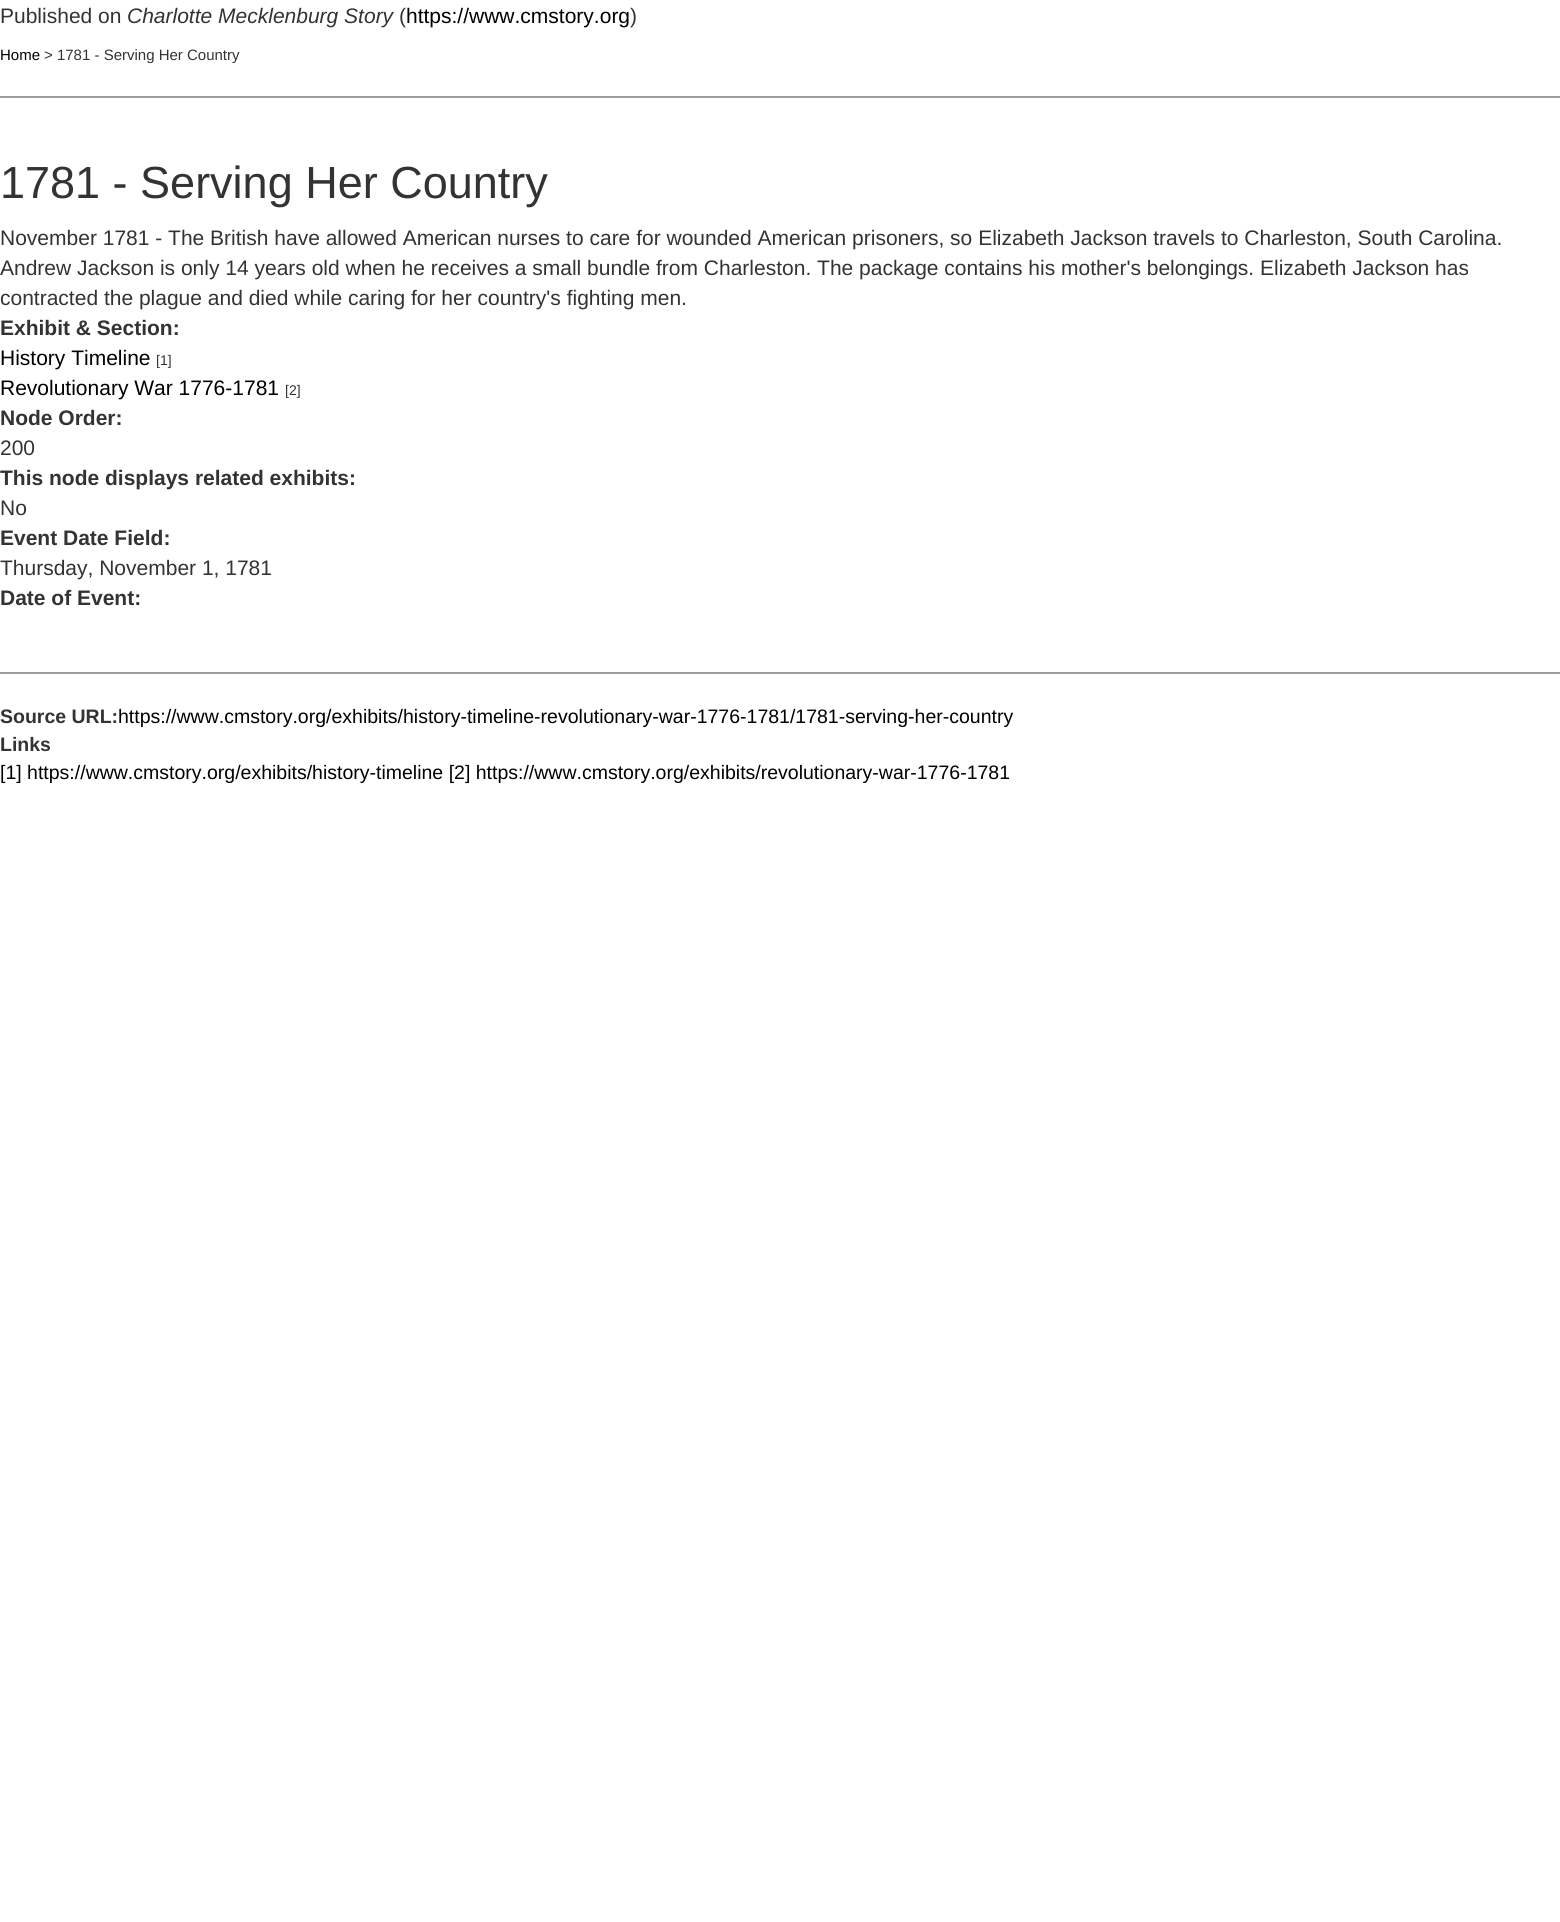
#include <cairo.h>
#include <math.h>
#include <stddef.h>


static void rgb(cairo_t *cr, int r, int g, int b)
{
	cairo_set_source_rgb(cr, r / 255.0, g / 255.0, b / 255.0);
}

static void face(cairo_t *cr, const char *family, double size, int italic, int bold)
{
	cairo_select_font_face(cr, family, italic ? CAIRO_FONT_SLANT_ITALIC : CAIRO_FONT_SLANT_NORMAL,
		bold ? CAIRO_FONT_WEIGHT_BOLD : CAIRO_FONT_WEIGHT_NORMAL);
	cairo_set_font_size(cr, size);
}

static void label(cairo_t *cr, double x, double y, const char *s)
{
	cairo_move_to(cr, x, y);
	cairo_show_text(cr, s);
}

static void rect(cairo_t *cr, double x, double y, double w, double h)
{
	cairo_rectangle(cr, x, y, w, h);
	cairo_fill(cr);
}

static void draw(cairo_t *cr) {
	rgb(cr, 255, 255, 255);
	cairo_paint(cr);
	face(cr, "Liberation Sans", 21, 0, 0);
	rgb(cr, 51, 51, 51);
	label(cr, 0, 23, "Published on");
	face(cr, "Liberation Sans", 21, 1, 0);
	label(cr, 127, 23, "Charlotte Mecklenburg Story");
	face(cr, "Liberation Sans", 21, 0, 0);
	label(cr, 399, 23, "(");
	rgb(cr, 0, 0, 0);
	label(cr, 406, 23, "https://www.cmstory.org");
	rgb(cr, 51, 51, 51);
	label(cr, 630, 23, ")");
	face(cr, "Liberation Sans", 15, 0, 0);
	rgb(cr, 0, 0, 0);
	label(cr, 0, 60, "Home");
	rgb(cr, 51, 51, 51);
	label(cr, 44, 60, "> 1781 - Serving Her Country");
	rgb(cr, 158, 158, 158);
	rect(cr, 0, 96, 1560, 2);
	face(cr, "Liberation Sans", 45, 0, 0);
	rgb(cr, 51, 51, 51);
	label(cr, 0, 198, "1781 - Serving Her Country");
	face(cr, "Liberation Sans", 21, 0, 0);
	label(cr, 0, 245, "November 1781 - The British have allowed American nurses to care for wounded American prisoners, so Elizabeth Jackson travels to Charleston, South Carolina.");
	label(cr, 0, 275, "Andrew Jackson is only 14 years old when he receives a small bundle from Charleston. The package contains his mother's belongings. Elizabeth Jackson has");
	label(cr, 0, 305, "contracted the plague and died while caring for her country's fighting men.");
	face(cr, "Liberation Sans", 21, 0, 1);
	label(cr, 0, 335, "Exhibit & Section:");
	face(cr, "Liberation Sans", 21, 0, 0);
	rgb(cr, 0, 0, 0);
	label(cr, 0, 365, "History Timeline");
	face(cr, "Liberation Sans", 14, 0, 0);
	rgb(cr, 51, 51, 51);
	label(cr, 156, 365, "[1]");
	face(cr, "Liberation Sans", 21, 0, 0);
	rgb(cr, 0, 0, 0);
	label(cr, 0, 395, "Revolutionary War 1776-1781");
	face(cr, "Liberation Sans", 14, 0, 0);
	rgb(cr, 51, 51, 51);
	label(cr, 285, 395, "[2]");
	face(cr, "Liberation Sans", 21, 0, 1);
	label(cr, 0, 425, "Node Order:");
	face(cr, "Liberation Sans", 21, 0, 0);
	label(cr, 0, 455, "200");
	face(cr, "Liberation Sans", 21, 0, 1);
	label(cr, 0, 485, "This node displays related exhibits:");
	face(cr, "Liberation Sans", 21, 0, 0);
	label(cr, 0, 515, "No");
	face(cr, "Liberation Sans", 21, 0, 1);
	label(cr, 0, 545, "Event Date Field:");
	face(cr, "Liberation Sans", 21, 0, 0);
	label(cr, 0, 575, "Thursday, November 1, 1781");
	face(cr, "Liberation Sans", 21, 0, 1);
	label(cr, 0, 605, "Date of Event:");
	rgb(cr, 158, 158, 158);
	rect(cr, 0, 672, 1560, 2);
	face(cr, "Liberation Sans", 19.5, 0, 1);
	rgb(cr, 51, 51, 51);
	label(cr, 0, 723, "Source URL:");
	face(cr, "Liberation Sans", 19.5, 0, 0);
	rgb(cr, 0, 0, 0);
	label(cr, 118, 723, "https://www.cmstory.org/exhibits/history-timeline-revolutionary-war-1776-1781/1781-serving-her-country");
	face(cr, "Liberation Sans", 19.5, 0, 1);
	rgb(cr, 51, 51, 51);
	label(cr, 0, 751, "Links");
	face(cr, "Liberation Sans", 19.5, 0, 0);
	rgb(cr, 0, 0, 0);
	label(cr, 0, 779, "[1] https://www.cmstory.org/exhibits/history-timeline [2] https://www.cmstory.org/exhibits/revolutionary-war-1776-1781");
}

int main(void) {
	cairo_surface_t *surface = cairo_image_surface_create(CAIRO_FORMAT_RGB24, 1560, 1922);
	cairo_t *cr = cairo_create(surface);
	cairo_font_options_t *options = cairo_font_options_create();
	cairo_font_options_set_hint_metrics(options, CAIRO_HINT_METRICS_OFF);
	cairo_font_options_set_hint_style(options, CAIRO_HINT_STYLE_NONE);
	cairo_set_font_options(cr, options);
	cairo_set_miter_limit(cr, 4);
	draw(cr);
	cairo_surface_write_to_png(surface, "render.png");
	cairo_font_options_destroy(options);
	cairo_destroy(cr);
	cairo_surface_destroy(surface);
	return 0;
}
